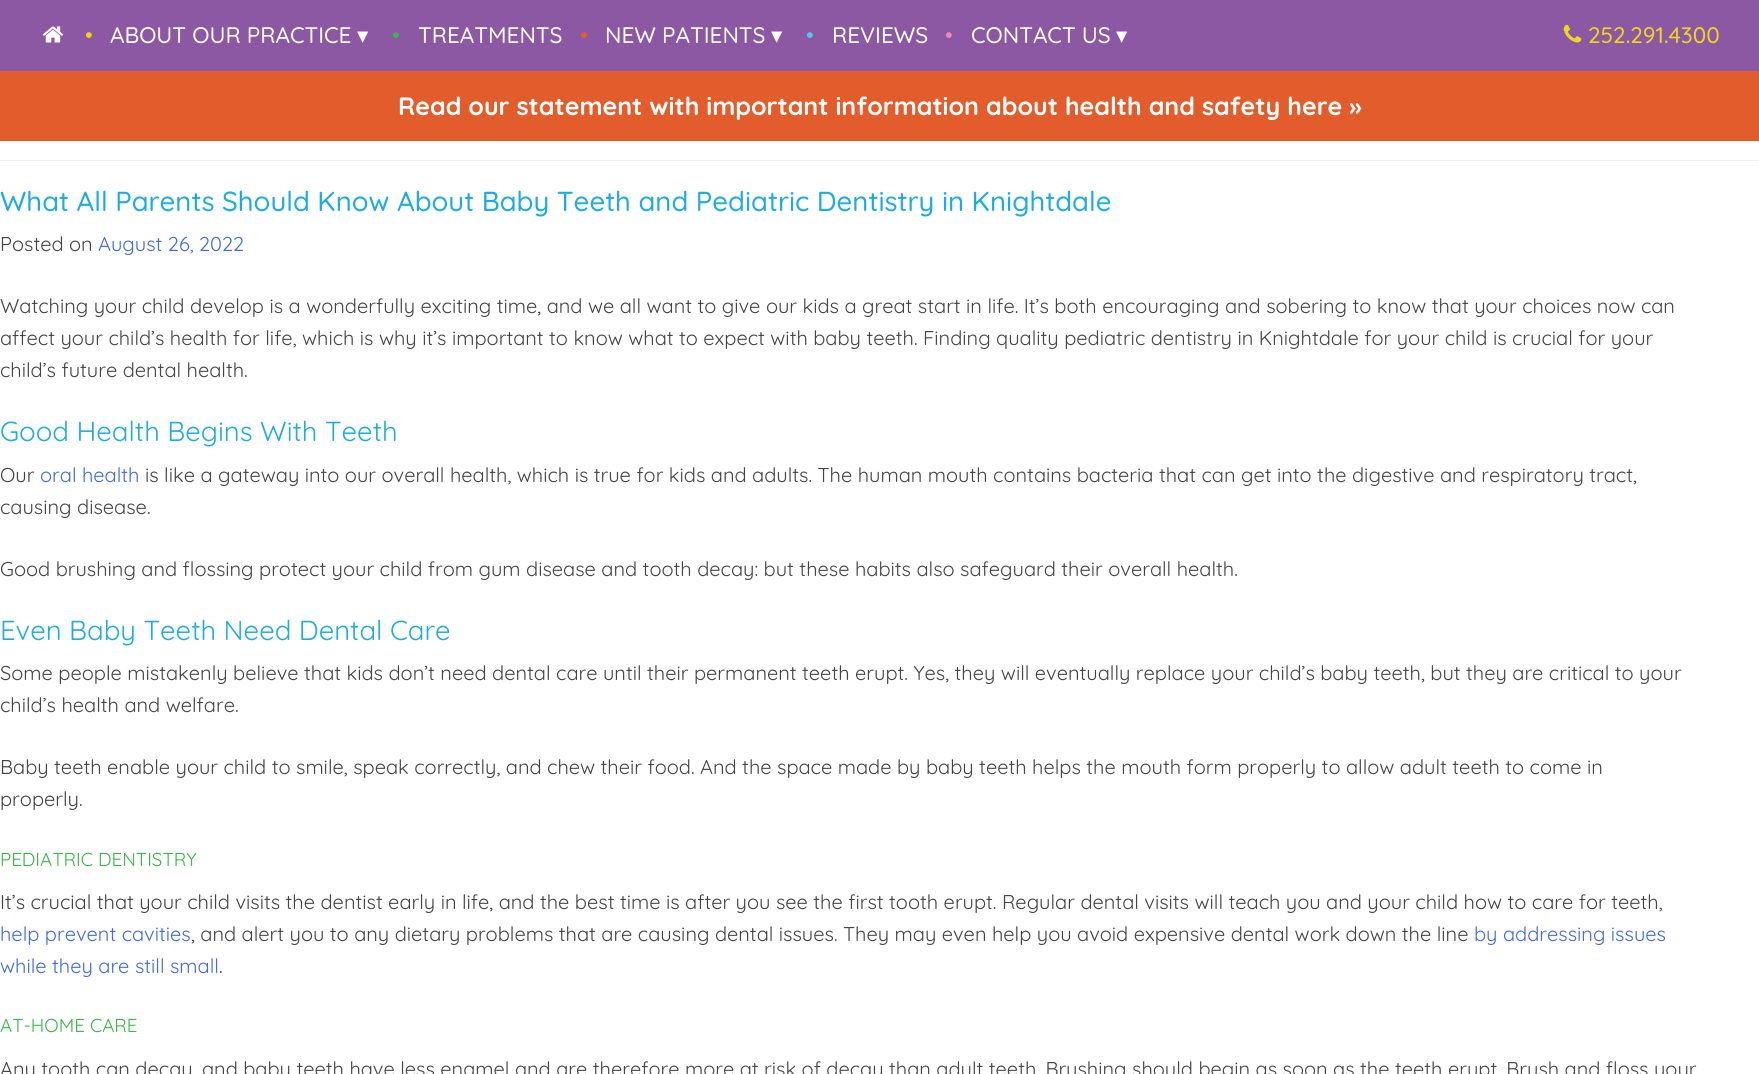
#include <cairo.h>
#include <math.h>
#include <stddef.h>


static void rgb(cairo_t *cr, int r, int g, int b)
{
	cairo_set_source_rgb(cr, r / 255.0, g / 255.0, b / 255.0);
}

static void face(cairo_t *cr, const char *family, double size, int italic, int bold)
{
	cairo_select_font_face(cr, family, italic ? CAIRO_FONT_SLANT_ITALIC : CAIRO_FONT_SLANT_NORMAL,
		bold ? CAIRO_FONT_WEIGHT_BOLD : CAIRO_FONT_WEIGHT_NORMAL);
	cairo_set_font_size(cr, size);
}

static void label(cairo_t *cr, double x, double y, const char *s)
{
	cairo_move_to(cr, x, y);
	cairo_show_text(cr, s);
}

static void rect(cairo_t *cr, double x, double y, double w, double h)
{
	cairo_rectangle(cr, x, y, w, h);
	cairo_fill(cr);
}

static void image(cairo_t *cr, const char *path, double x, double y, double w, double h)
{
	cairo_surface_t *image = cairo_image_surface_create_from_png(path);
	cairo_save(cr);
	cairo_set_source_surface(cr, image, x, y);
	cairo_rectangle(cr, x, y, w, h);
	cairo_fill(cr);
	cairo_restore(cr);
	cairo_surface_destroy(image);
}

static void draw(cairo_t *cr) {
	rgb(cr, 255, 255, 255);
	cairo_paint(cr);
	rgb(cr, 140, 88, 163);
	rect(cr, 0, 0, 1759, 71);
	image(cr, "image0.png", 42, 26, 21, 17);
	face(cr, "Quicksand", 22.5, 0, 0);
	rgb(cr, 238, 212, 24);
	label(cr, 85, 43, "•");
	face(cr, "Quicksand Medium", 22.5, 0, 0);
	rgb(cr, 255, 255, 255);
	label(cr, 110, 43, "ABOUT OUR PRACTICE");
	face(cr, "DejaVu Sans", 22.5, 0, 0);
	label(cr, 357, 43, "▾");
	face(cr, "Quicksand", 22.5, 0, 0);
	rgb(cr, 57, 181, 74);
	label(cr, 392, 43, "•");
	face(cr, "Quicksand Medium", 22.5, 0, 0);
	rgb(cr, 255, 255, 255);
	label(cr, 418, 43, "TREATMENTS");
	face(cr, "Quicksand", 22.5, 0, 0);
	rgb(cr, 227, 93, 44);
	label(cr, 580, 43, "•");
	face(cr, "Quicksand Medium", 22.5, 0, 0);
	rgb(cr, 255, 255, 255);
	label(cr, 605, 43, "NEW PATIENTS");
	face(cr, "DejaVu Sans", 22.5, 0, 0);
	label(cr, 771, 43, "▾");
	face(cr, "Quicksand", 22.5, 0, 0);
	rgb(cr, 86, 200, 235);
	label(cr, 806, 43, "•");
	face(cr, "Quicksand Medium", 22.5, 0, 0);
	rgb(cr, 255, 255, 255);
	label(cr, 832, 43, "REVIEWS");
	face(cr, "Quicksand", 22.5, 0, 0);
	rgb(cr, 235, 138, 185);
	label(cr, 945, 43, "•");
	face(cr, "Quicksand Medium", 22.5, 0, 0);
	rgb(cr, 255, 255, 255);
	label(cr, 971, 43, "CONTACT US");
	face(cr, "DejaVu Sans", 22.5, 0, 0);
	label(cr, 1116, 43, "▾");
	image(cr, "image1.png", 1563, 24, 19, 19);
	face(cr, "Quicksand Medium", 22.5, 0, 0);
	rgb(cr, 238, 214, 30);
	label(cr, 1588, 43, "252.291.4300");
	rgb(cr, 227, 93, 44);
	rect(cr, 0, 71, 1759, 70);
	face(cr, "Quicksand", 25, 0, 1);
	rgb(cr, 255, 255, 255);
	label(cr, 398, 115, "Read our statement with important information about health and safety here »");
	rgb(cr, 238, 238, 238);
	rect(cr, 0, 160, 1759, 1);
	face(cr, "Quicksand Medium", 27.5, 0, 0);
	rgb(cr, 30, 171, 227);
	label(cr, 0, 211, "What All Parents Should Know About Baby Teeth and Pediatric Dentistry in Knightdale");
	face(cr, "Quicksand", 20, 0, 0);
	rgb(cr, 68, 68, 68);
	label(cr, 0, 251, "Posted on");
	rgb(cr, 65, 105, 225);
	label(cr, 98, 251, "August 26, 2022");
	rgb(cr, 68, 68, 68);
	label(cr, 0, 313, "Watching your child develop is a wonderfully exciting time, and we all want to give our kids a great start in life. It’s both encouraging and sobering to know that your choices now can");
	label(cr, 0, 345, "affect your child’s health for life, which is why it’s important to know what to expect with baby teeth. Finding quality pediatric dentistry in Knightdale for your child is crucial for your");
	label(cr, 0, 377, "child’s future dental health.");
	face(cr, "Quicksand", 27.5, 0, 0);
	rgb(cr, 30, 171, 227);
	label(cr, 0, 441, "Good Health Begins With Teeth");
	face(cr, "Quicksand", 20, 0, 0);
	rgb(cr, 68, 68, 68);
	label(cr, 0, 482, "Our");
	rgb(cr, 65, 105, 225);
	label(cr, 40, 482, "oral health");
	rgb(cr, 68, 68, 68);
	label(cr, 145, 482, "is like a gateway into our overall health, which is true for kids and adults. The human mouth contains bacteria that can get into the digestive and respiratory tract,");
	label(cr, 0, 514, "causing disease.");
	label(cr, 0, 576, "Good brushing and flossing protect your child from gum disease and tooth decay: but these habits also safeguard their overall health.");
	face(cr, "Quicksand", 27.5, 0, 0);
	rgb(cr, 30, 171, 227);
	label(cr, 0, 640, "Even Baby Teeth Need Dental Care");
	face(cr, "Quicksand", 20, 0, 0);
	rgb(cr, 68, 68, 68);
	label(cr, 0, 680, "Some people mistakenly believe that kids don’t need dental care until their permanent teeth erupt. Yes, they will eventually replace your child’s baby teeth, but they are critical to your");
	label(cr, 0, 712, "child’s health and welfare.");
	label(cr, 0, 774, "Baby teeth enable your child to smile, speak correctly, and chew their food. And the space made by baby teeth helps the mouth form properly to allow adult teeth to come in");
	label(cr, 0, 806, "properly.");
	face(cr, "Quicksand", 18.75, 0, 0);
	rgb(cr, 57, 181, 74);
	label(cr, 0, 866, "PEDIATRIC DENTISTRY");
	face(cr, "Quicksand", 20, 0, 0);
	rgb(cr, 68, 68, 68);
	label(cr, 0, 909, "It’s crucial that your child visits the dentist early in life, and the best time is after you see the first tooth erupt. Regular dental visits will teach you and your child how to care for teeth,");
	rgb(cr, 65, 105, 225);
	label(cr, 0, 941, "help prevent cavities");
	rgb(cr, 68, 68, 68);
	label(cr, 191, 941, ", and alert you to any dietary problems that are causing dental issues. They may even help you avoid expensive dental work down the line");
	rgb(cr, 65, 105, 225);
	label(cr, 1474, 941, "by addressing issues");
	label(cr, 0, 973, "while they are still small");
	rgb(cr, 68, 68, 68);
	label(cr, 219, 973, ".");
	face(cr, "Quicksand", 18.75, 0, 0);
	rgb(cr, 57, 181, 74);
	label(cr, 0, 1032, "AT-HOME CARE");
	face(cr, "Quicksand", 20, 0, 0);
	rgb(cr, 68, 68, 68);
	label(cr, 0, 1076, "Any tooth can decay, and baby teeth have less enamel and are therefore more at risk of decay than adult teeth. Brushing should begin as soon as the teeth erupt. Brush and floss your");
}

int main(void) {
	cairo_surface_t *surface = cairo_image_surface_create(CAIRO_FORMAT_RGB24, 1759, 1074);
	cairo_t *cr = cairo_create(surface);
	cairo_font_options_t *options = cairo_font_options_create();
	cairo_font_options_set_hint_metrics(options, CAIRO_HINT_METRICS_OFF);
	cairo_font_options_set_hint_style(options, CAIRO_HINT_STYLE_NONE);
	cairo_set_font_options(cr, options);
	cairo_set_miter_limit(cr, 4);
	draw(cr);
	cairo_surface_write_to_png(surface, "render.png");
	cairo_font_options_destroy(options);
	cairo_destroy(cr);
	cairo_surface_destroy(surface);
	return 0;
}
